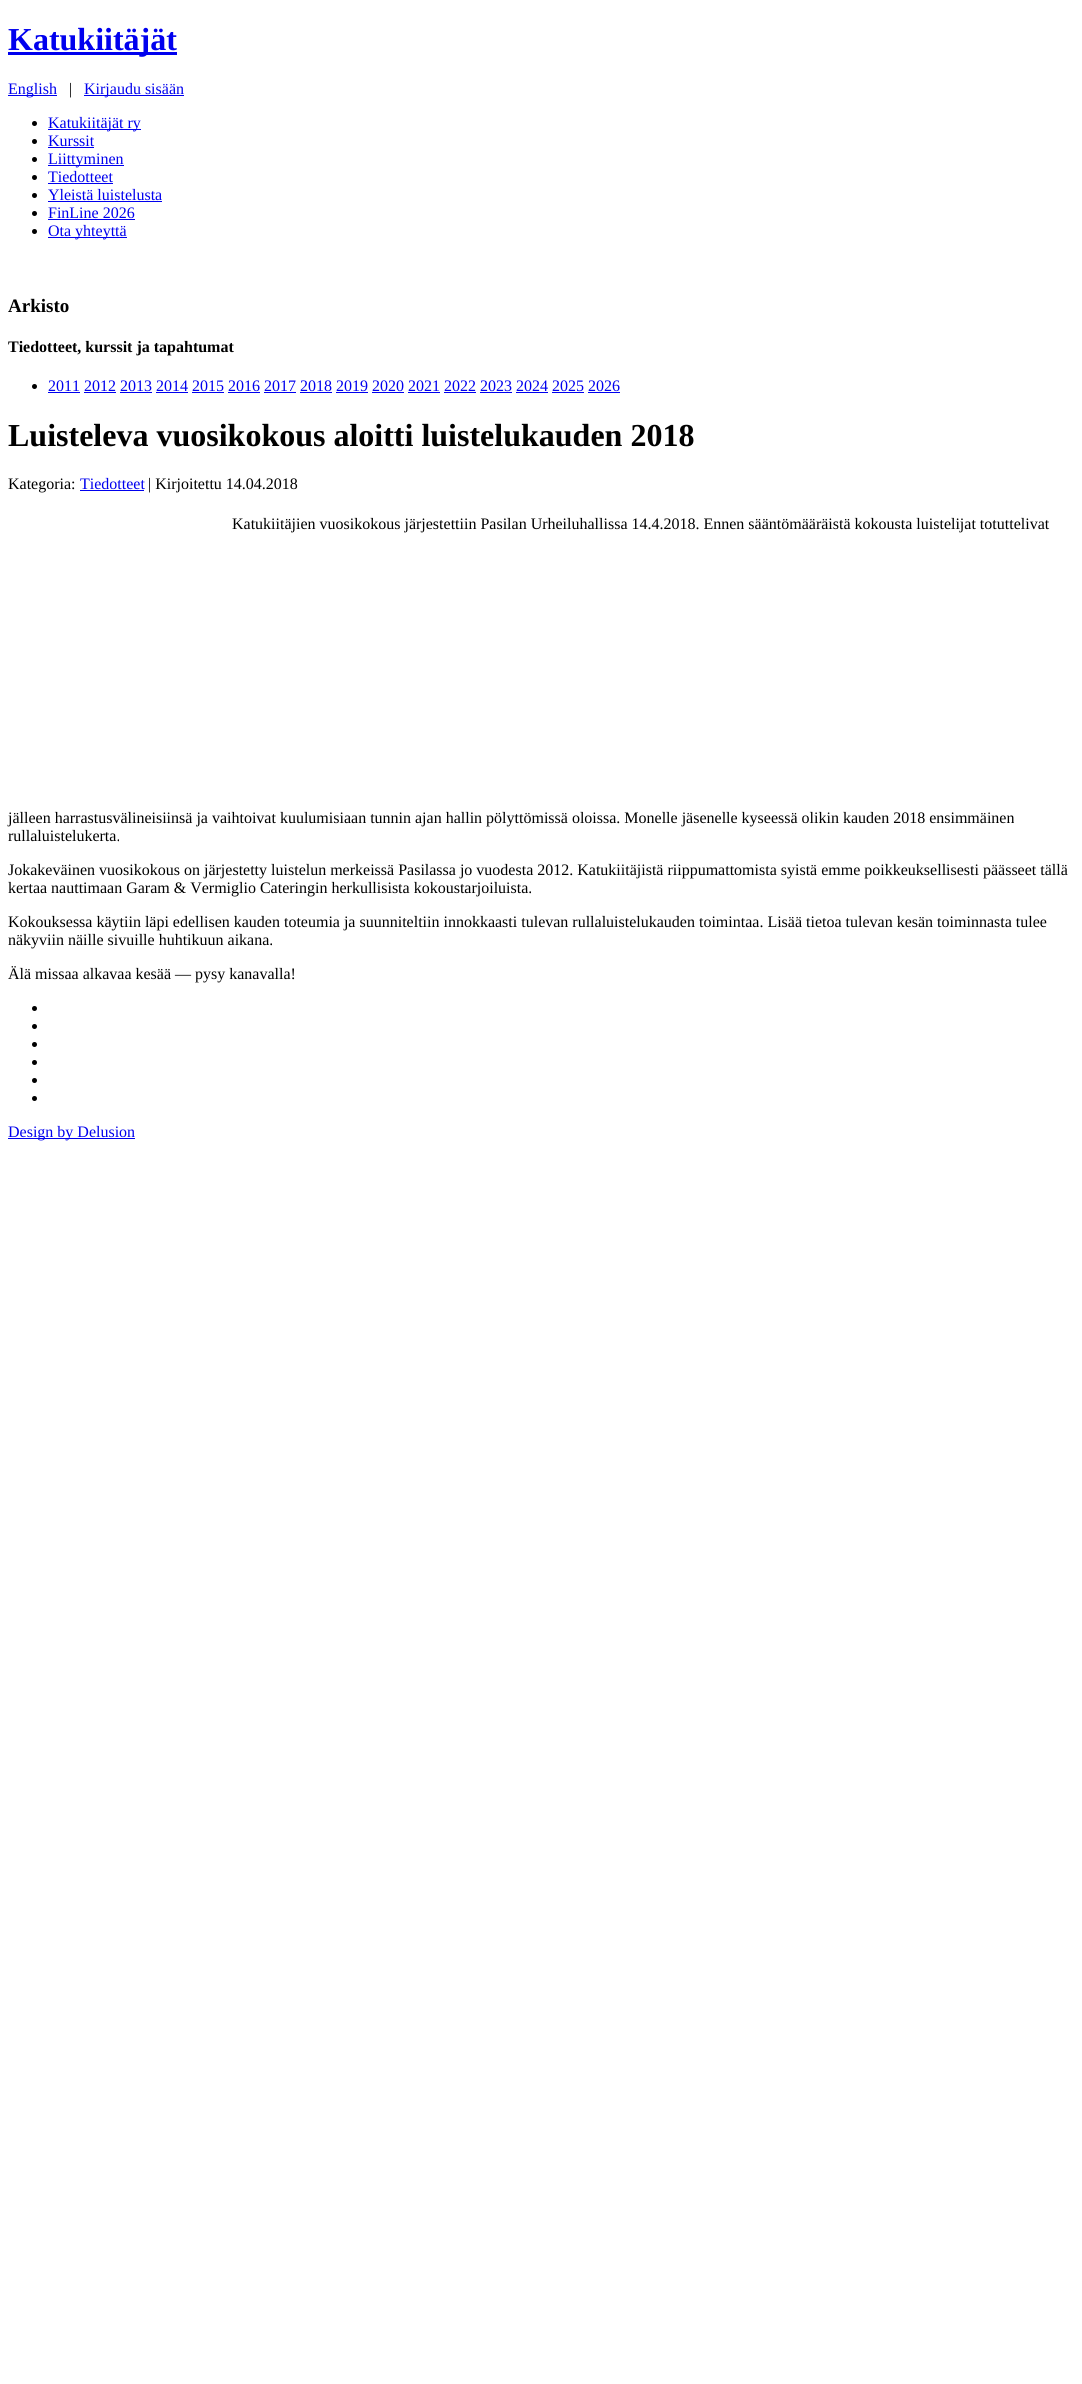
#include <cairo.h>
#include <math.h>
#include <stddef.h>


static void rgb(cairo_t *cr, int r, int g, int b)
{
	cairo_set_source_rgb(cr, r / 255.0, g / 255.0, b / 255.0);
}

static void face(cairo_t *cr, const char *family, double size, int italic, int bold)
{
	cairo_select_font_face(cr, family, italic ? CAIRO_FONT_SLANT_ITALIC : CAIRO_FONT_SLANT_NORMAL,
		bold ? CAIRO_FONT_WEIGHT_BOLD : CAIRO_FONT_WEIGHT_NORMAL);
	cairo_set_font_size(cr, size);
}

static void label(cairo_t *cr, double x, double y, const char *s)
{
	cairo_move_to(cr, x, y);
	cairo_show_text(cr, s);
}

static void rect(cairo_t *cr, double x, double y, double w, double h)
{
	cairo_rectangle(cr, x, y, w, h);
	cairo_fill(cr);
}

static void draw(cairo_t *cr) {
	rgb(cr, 255, 255, 255);
	cairo_paint(cr);
	rgb(cr, 0, 0, 238);
	rect(cr, 8, 52, 169, 3);
	face(cr, "Liberation Serif", 32, 0, 1);
	label(cr, 8, 50, "Katukiitäjät");
	rect(cr, 8, 95, 49, 1);
	face(cr, "Liberation Serif", 16, 0, 0);
	label(cr, 8, 94, "English");
	rgb(cr, 0, 0, 0);
	label(cr, 69, 94, "|");
	rgb(cr, 0, 0, 238);
	rect(cr, 84, 95, 100, 1);
	label(cr, 84, 94, "Kirjaudu sisään");
	rgb(cr, 0, 0, 0);
	cairo_new_path(cr);
	cairo_arc(cr, 34.5, 123.5, 2.5, 0, 2 * M_PI);
	cairo_fill(cr);
	rgb(cr, 0, 0, 238);
	rect(cr, 48, 129, 93, 1);
	label(cr, 48, 128, "Katukiitäjät ry");
	rgb(cr, 0, 0, 0);
	cairo_new_path(cr);
	cairo_arc(cr, 34.5, 141.5, 2.5, 0, 2 * M_PI);
	cairo_fill(cr);
	rgb(cr, 0, 0, 238);
	label(cr, 48, 146, "Kurssit");
	rect(cr, 48, 147, 46, 1);
	rgb(cr, 0, 0, 0);
	cairo_new_path(cr);
	cairo_arc(cr, 34.5, 159.5, 2.5, 0, 2 * M_PI);
	cairo_fill(cr);
	rgb(cr, 0, 0, 238);
	rect(cr, 48, 165, 76, 1);
	label(cr, 48, 164, "Liittyminen");
	rgb(cr, 0, 0, 0);
	cairo_new_path(cr);
	cairo_arc(cr, 34.5, 177.5, 2.5, 0, 2 * M_PI);
	cairo_fill(cr);
	rgb(cr, 0, 0, 238);
	label(cr, 48, 182, "Tiedotteet");
	rect(cr, 48, 183, 65, 1);
	rgb(cr, 0, 0, 0);
	cairo_new_path(cr);
	cairo_arc(cr, 34.5, 195.5, 2.5, 0, 2 * M_PI);
	cairo_fill(cr);
	rgb(cr, 0, 0, 238);
	label(cr, 48, 200, "Yleistä luistelusta");
	rect(cr, 48, 201, 114, 1);
	rgb(cr, 0, 0, 0);
	cairo_new_path(cr);
	cairo_arc(cr, 34.5, 213.5, 2.5, 0, 2 * M_PI);
	cairo_fill(cr);
	rgb(cr, 0, 0, 238);
	label(cr, 48, 218, "FinLine 2026");
	rect(cr, 48, 219, 87, 1);
	rgb(cr, 0, 0, 0);
	cairo_new_path(cr);
	cairo_arc(cr, 34.5, 231.5, 2.5, 0, 2 * M_PI);
	cairo_fill(cr);
	rgb(cr, 0, 0, 238);
	rect(cr, 48, 237, 79, 1);
	label(cr, 48, 236, "Ota yhteyttä");
	face(cr, "Liberation Serif", 19, 0, 1);
	rgb(cr, 0, 0, 0);
	label(cr, 8, 312, "Arkisto");
	face(cr, "Liberation Serif", 16, 0, 1);
	label(cr, 8, 352, "Tiedotteet, kurssit ja tapahtumat");
	cairo_new_path(cr);
	cairo_arc(cr, 34.5, 386.5, 2.5, 0, 2 * M_PI);
	cairo_fill(cr);
	face(cr, "Liberation Serif", 16, 0, 0);
	rgb(cr, 0, 0, 238);
	label(cr, 48, 391, "2011 2012 2013 2014 2015 2016 2017 2018 2019 2020 2021 2022 2023 2024 2025 2026");
	rect(cr, 48, 392, 32, 1);
	rect(cr, 84, 392, 32, 1);
	rect(cr, 120, 392, 32, 1);
	rect(cr, 156, 392, 32, 1);
	rect(cr, 192, 392, 32, 1);
	rect(cr, 228, 392, 32, 1);
	rect(cr, 264, 392, 32, 1);
	rect(cr, 300, 392, 32, 1);
	rect(cr, 336, 392, 32, 1);
	rect(cr, 372, 392, 32, 1);
	rect(cr, 408, 392, 32, 1);
	rect(cr, 444, 392, 32, 1);
	rect(cr, 480, 392, 32, 1);
	rect(cr, 516, 392, 32, 1);
	rect(cr, 552, 392, 32, 1);
	rect(cr, 588, 392, 32, 1);
	face(cr, "Liberation Serif", 32, 0, 1);
	rgb(cr, 0, 0, 0);
	label(cr, 8, 446, "Luisteleva vuosikokous aloitti luistelukauden 2018");
	face(cr, "Liberation Serif", 16, 0, 0);
	label(cr, 8, 489, "Kategoria:");
	rgb(cr, 0, 0, 238);
	label(cr, 80, 489, "Tiedotteet");
	rect(cr, 80, 490, 64, 1);
	rgb(cr, 0, 0, 0);
	label(cr, 148, 489, "| Kirjoitettu 14.04.2018");
	label(cr, 232, 529, "Katukiitäjien vuosikokous järjestettiin Pasilan Urheiluhallissa 14.4.2018. Ennen sääntömääräistä kokousta luistelijat totuttelivat");
	label(cr, 8, 823, "jälleen harrastusvälineisiinsä ja vaihtoivat kuulumisiaan tunnin ajan hallin pölyttömissä oloissa. Monelle jäsenelle kyseessä olikin kauden 2018 ensimmäinen");
	label(cr, 8, 841, "rullaluistelukerta.");
	label(cr, 8, 875, "Jokakeväinen vuosikokous on järjestetty luistelun merkeissä Pasilassa jo vuodesta 2012. Katukiitäjistä riippumattomista syistä emme poikkeuksellisesti päässeet tällä");
	label(cr, 8, 893, "kertaa nauttimaan Garam & Vermiglio Cateringin herkullisista kokoustarjoiluista.");
	label(cr, 8, 927, "Kokouksessa käytiin läpi edellisen kauden toteumia ja suunniteltiin innokkaasti tulevan rullaluistelukauden toimintaa. Lisää tietoa tulevan kesän toiminnasta tulee");
	label(cr, 8, 945, "näkyviin näille sivuille huhtikuun aikana.");
	label(cr, 8, 979, "Älä missaa alkavaa kesää — pysy kanavalla!");
	cairo_new_path(cr);
	cairo_arc(cr, 34.5, 1008.5, 2.5, 0, 2 * M_PI);
	cairo_fill(cr);
	cairo_arc(cr, 34.5, 1026.5, 2.5, 0, 2 * M_PI);
	cairo_fill(cr);
	cairo_arc(cr, 34.5, 1044.5, 2.5, 0, 2 * M_PI);
	cairo_fill(cr);
	cairo_arc(cr, 34.5, 1062.5, 2.5, 0, 2 * M_PI);
	cairo_fill(cr);
	cairo_arc(cr, 34.5, 1080.5, 2.5, 0, 2 * M_PI);
	cairo_fill(cr);
	cairo_arc(cr, 34.5, 1098.5, 2.5, 0, 2 * M_PI);
	cairo_fill(cr);
	rgb(cr, 0, 0, 238);
	rect(cr, 8, 1138, 127, 1);
	label(cr, 8, 1137, "Design by Delusion");
}

int main(void) {
	cairo_surface_t *surface = cairo_image_surface_create(CAIRO_FORMAT_RGB24, 1082, 2384);
	cairo_t *cr = cairo_create(surface);
	cairo_font_options_t *options = cairo_font_options_create();
	cairo_font_options_set_hint_metrics(options, CAIRO_HINT_METRICS_OFF);
	cairo_font_options_set_hint_style(options, CAIRO_HINT_STYLE_NONE);
	cairo_set_font_options(cr, options);
	cairo_set_miter_limit(cr, 4);
	draw(cr);
	cairo_surface_write_to_png(surface, "render.png");
	cairo_font_options_destroy(options);
	cairo_destroy(cr);
	cairo_surface_destroy(surface);
	return 0;
}
